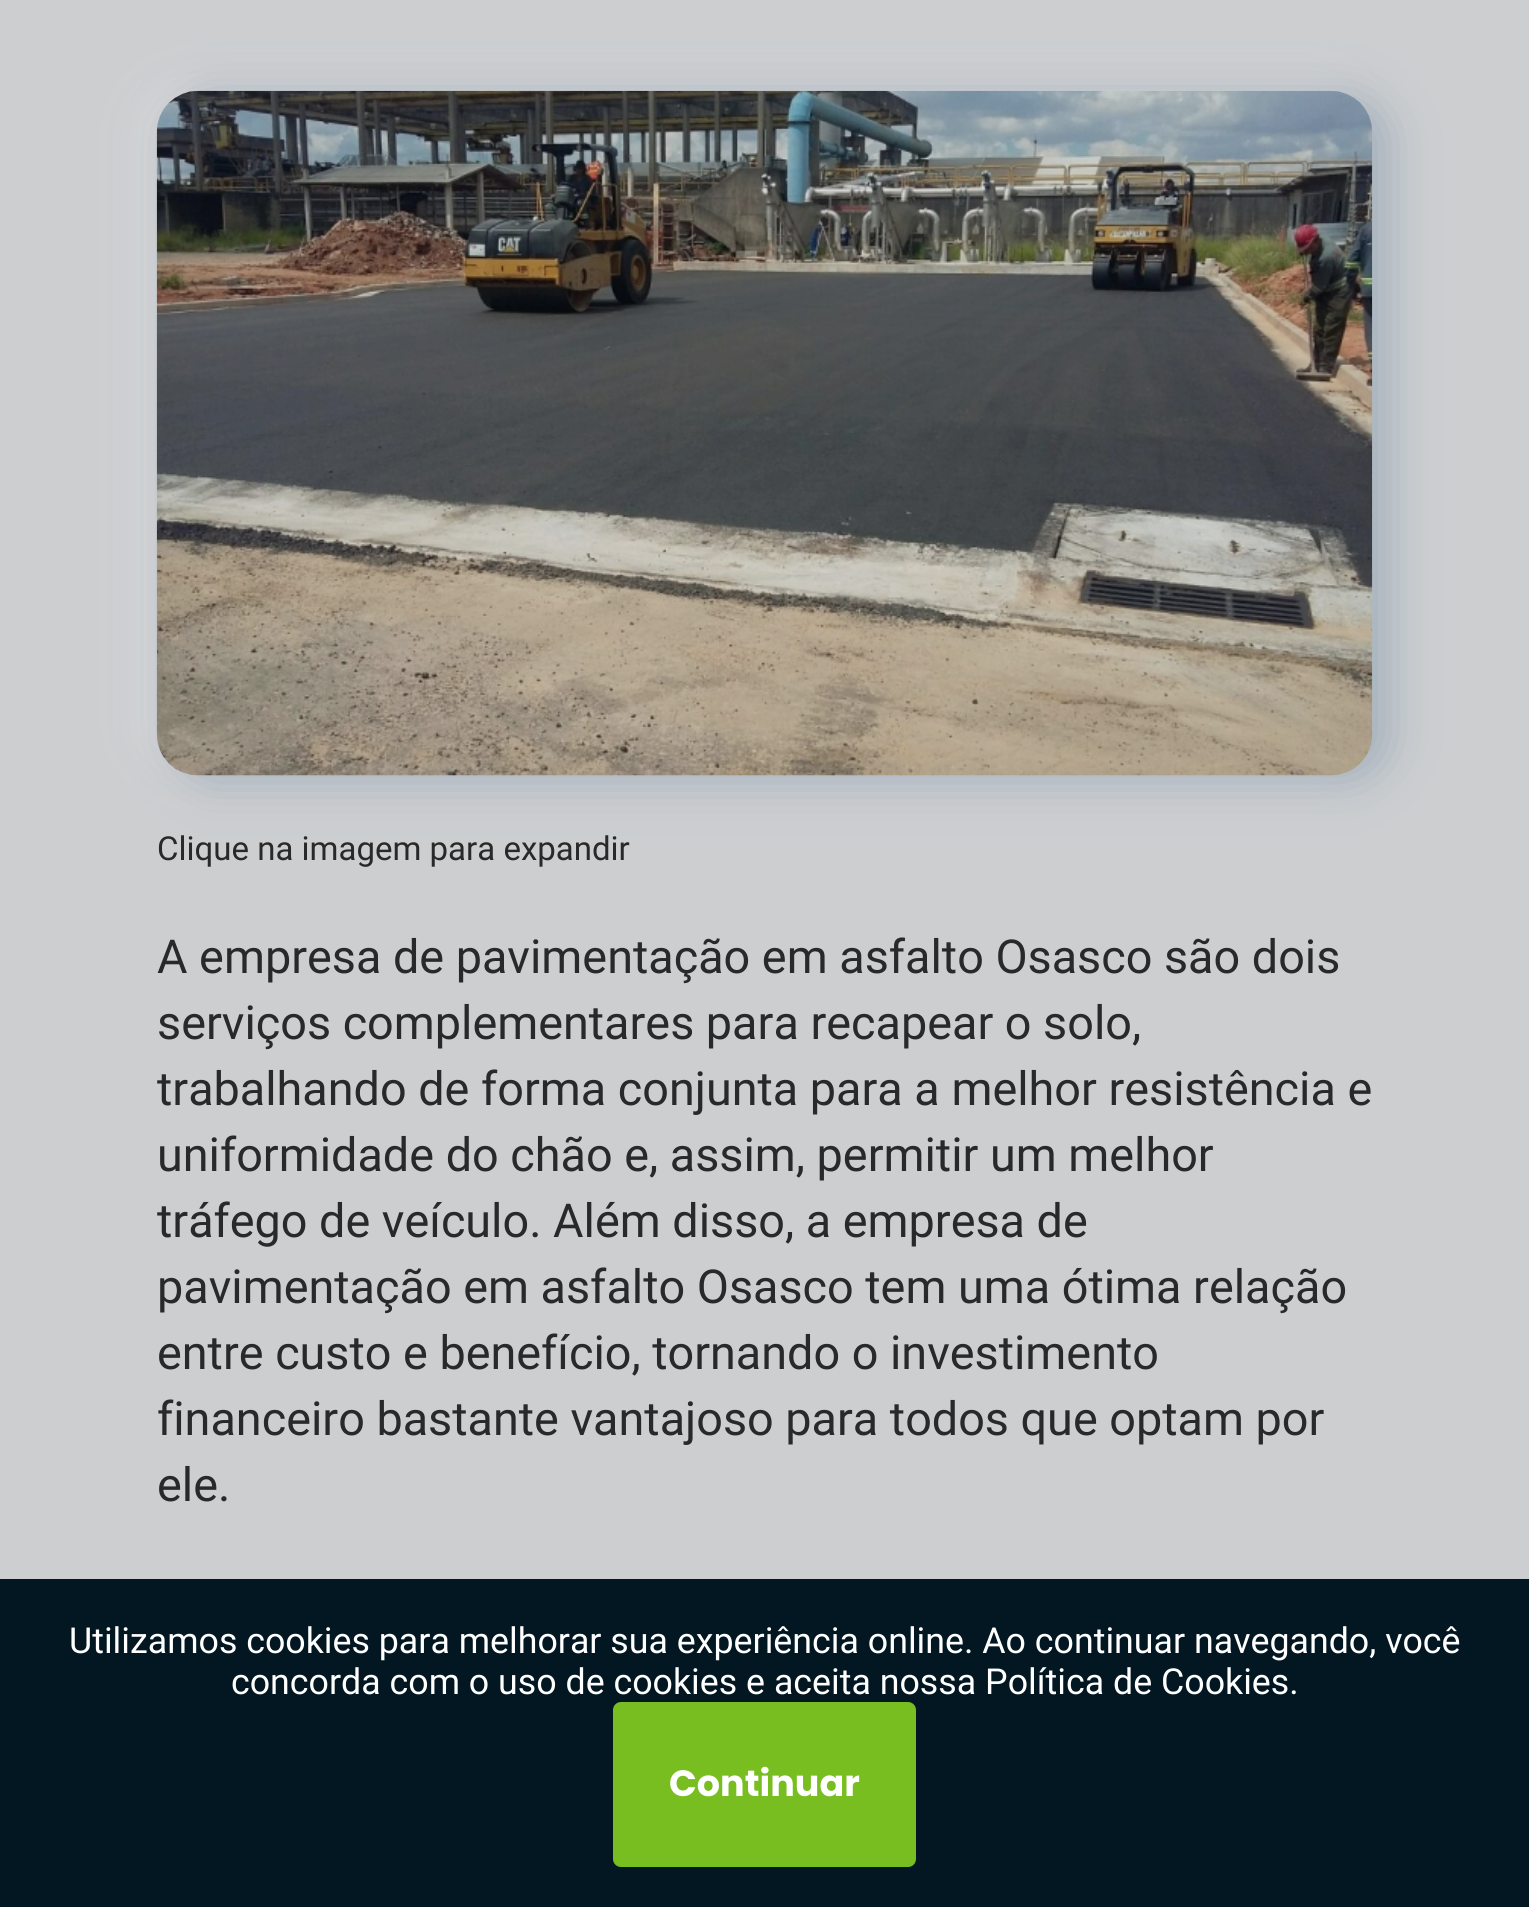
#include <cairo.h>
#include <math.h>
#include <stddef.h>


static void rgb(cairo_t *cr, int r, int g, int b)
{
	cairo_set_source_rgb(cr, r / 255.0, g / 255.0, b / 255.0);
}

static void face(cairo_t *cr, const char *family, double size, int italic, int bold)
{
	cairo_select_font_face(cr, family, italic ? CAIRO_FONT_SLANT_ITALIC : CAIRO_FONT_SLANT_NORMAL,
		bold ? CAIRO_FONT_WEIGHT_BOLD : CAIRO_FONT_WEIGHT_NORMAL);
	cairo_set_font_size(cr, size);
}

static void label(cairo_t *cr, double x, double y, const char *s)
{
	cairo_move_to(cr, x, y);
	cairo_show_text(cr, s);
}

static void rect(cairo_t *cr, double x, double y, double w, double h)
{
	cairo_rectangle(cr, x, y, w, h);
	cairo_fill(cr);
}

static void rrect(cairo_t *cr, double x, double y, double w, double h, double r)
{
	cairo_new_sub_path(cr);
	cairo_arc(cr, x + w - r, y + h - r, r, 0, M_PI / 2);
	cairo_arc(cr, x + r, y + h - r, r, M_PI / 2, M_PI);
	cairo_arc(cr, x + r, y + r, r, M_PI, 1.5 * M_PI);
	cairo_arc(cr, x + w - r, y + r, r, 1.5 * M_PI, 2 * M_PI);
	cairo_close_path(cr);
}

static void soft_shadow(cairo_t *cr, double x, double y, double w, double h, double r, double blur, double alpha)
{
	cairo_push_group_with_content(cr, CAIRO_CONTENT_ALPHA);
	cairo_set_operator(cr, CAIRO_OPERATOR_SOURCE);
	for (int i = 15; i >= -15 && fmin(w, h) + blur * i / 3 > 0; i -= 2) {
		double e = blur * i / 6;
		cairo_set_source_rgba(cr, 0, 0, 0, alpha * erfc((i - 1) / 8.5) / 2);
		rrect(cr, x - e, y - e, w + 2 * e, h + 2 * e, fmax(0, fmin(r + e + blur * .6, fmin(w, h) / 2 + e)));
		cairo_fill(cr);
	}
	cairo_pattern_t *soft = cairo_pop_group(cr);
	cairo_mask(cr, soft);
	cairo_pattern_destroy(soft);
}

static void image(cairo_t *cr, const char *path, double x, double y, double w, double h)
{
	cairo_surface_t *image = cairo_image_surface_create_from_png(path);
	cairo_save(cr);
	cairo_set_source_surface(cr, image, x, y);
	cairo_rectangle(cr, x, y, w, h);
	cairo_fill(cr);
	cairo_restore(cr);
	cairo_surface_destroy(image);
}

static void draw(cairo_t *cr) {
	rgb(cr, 204, 206, 208);
	cairo_paint(cr);
	rgb(cr, 217, 217, 217);
	soft_shadow(cr, 140, 85, 1216, 685, 41, 22, 0.8);
	rgb(cr, 116, 140, 162);
	soft_shadow(cr, 173, 96, 1216, 685, 41, 22, 0.48);
	image(cr, "image0.png", 156, 90, 1217, 686);
	face(cr, "Roboto", 33, 0, 0);
	rgb(cr, 41, 41, 41);
	label(cr, 157, 860, "Clique na imagem para expandir");
	face(cr, "Roboto", 46.75, 0, 0);
	label(cr, 157, 973, "A empresa de pavimentação em asfalto Osasco são dois");
	label(cr, 157, 1039, "serviços complementares para recapear o solo,");
	label(cr, 157, 1105, "trabalhando de forma conjunta para a melhor resistência e");
	label(cr, 157, 1171, "uniformidade do chão e, assim, permitir um melhor");
	label(cr, 157, 1237, "tráfego de veículo. Além disso, a empresa de");
	label(cr, 157, 1303, "pavimentação em asfalto Osasco tem uma ótima relação");
	label(cr, 157, 1369, "entre custo e benefício, tornando o investimento");
	label(cr, 157, 1435, "financeiro bastante vantajoso para todos que optam por");
	label(cr, 157, 1501, "ele.");
	rgb(cr, 2, 23, 34);
	rect(cr, 0, 1579, 1529, 328);
	face(cr, "Roboto", 35.75, 0, 0);
	rgb(cr, 255, 255, 255);
	label(cr, 69, 1653, "Utilizamos cookies para melhorar sua experiência online. Ao continuar navegando, você");
	label(cr, 231, 1694, "concorda com o uso de cookies e aceita nossa Política de Cookies.");
	rgb(cr, 120, 190, 32);
	rrect(cr, 613, 1702, 303, 165, 8);
	cairo_fill(cr);
	face(cr, "Poppins", 36.5, 0, 1);
	rgb(cr, 255, 255, 255);
	label(cr, 669, 1796, "Continuar");
}

int main(void) {
	cairo_surface_t *surface = cairo_image_surface_create(CAIRO_FORMAT_RGB24, 1529, 1907);
	cairo_t *cr = cairo_create(surface);
	cairo_font_options_t *options = cairo_font_options_create();
	cairo_font_options_set_hint_metrics(options, CAIRO_HINT_METRICS_OFF);
	cairo_font_options_set_hint_style(options, CAIRO_HINT_STYLE_NONE);
	cairo_set_font_options(cr, options);
	cairo_set_miter_limit(cr, 4);
	draw(cr);
	cairo_surface_write_to_png(surface, "render.png");
	cairo_font_options_destroy(options);
	cairo_destroy(cr);
	cairo_surface_destroy(surface);
	return 0;
}
